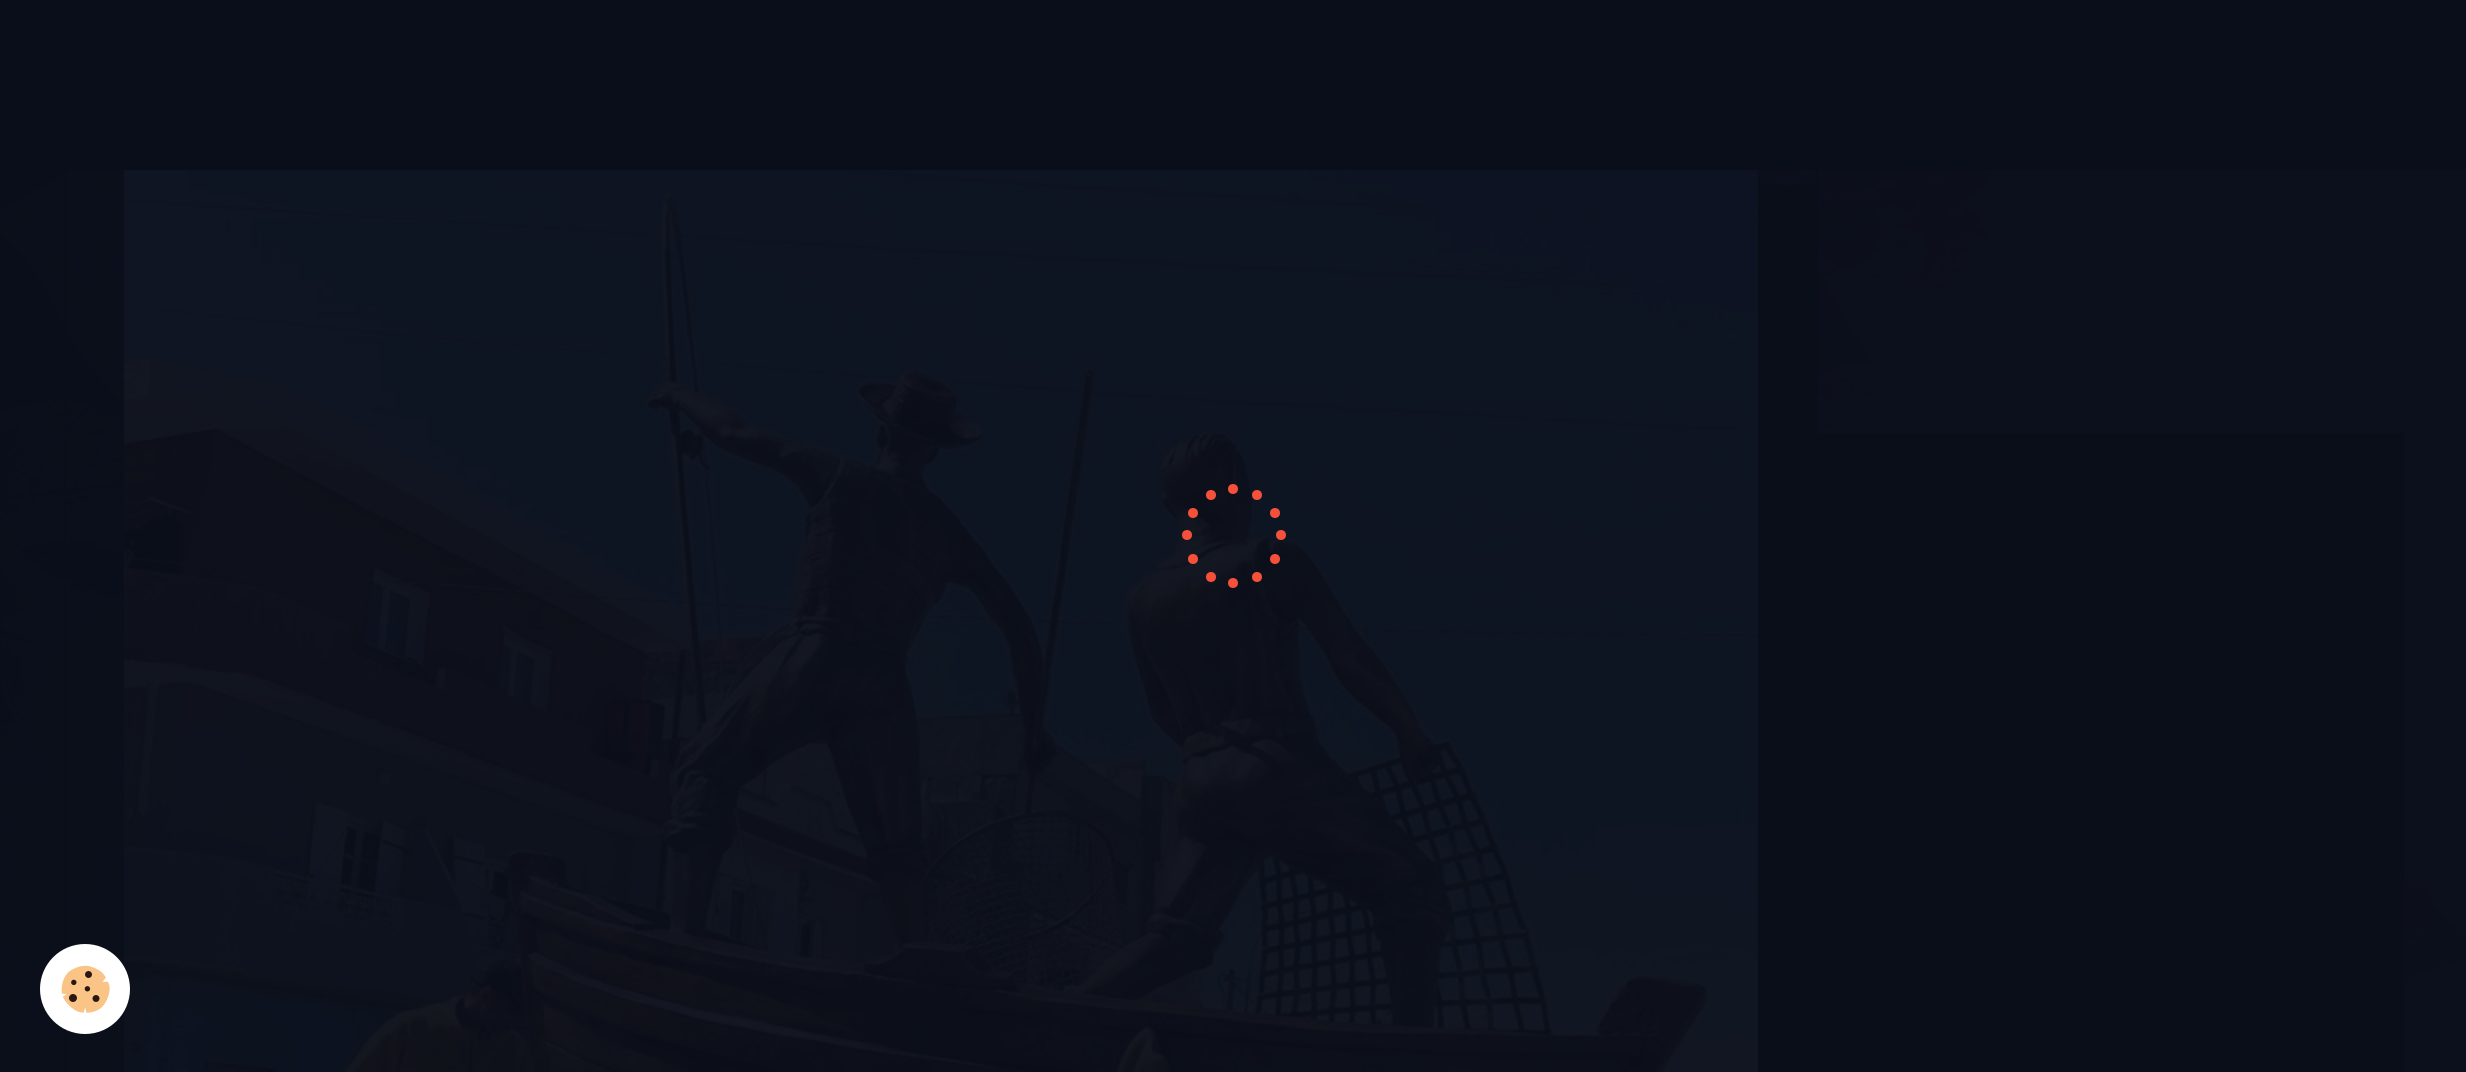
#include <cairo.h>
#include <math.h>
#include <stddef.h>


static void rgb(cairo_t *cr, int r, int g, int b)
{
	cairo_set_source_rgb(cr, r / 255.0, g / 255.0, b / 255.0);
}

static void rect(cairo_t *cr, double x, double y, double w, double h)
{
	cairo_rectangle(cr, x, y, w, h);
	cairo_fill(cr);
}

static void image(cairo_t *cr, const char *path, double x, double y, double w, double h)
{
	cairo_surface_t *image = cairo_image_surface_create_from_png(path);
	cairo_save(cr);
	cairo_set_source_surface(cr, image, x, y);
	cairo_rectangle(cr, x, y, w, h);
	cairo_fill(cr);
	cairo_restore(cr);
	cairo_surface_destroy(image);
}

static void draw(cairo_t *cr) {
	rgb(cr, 10, 14, 26);
	cairo_paint(cr);
	image(cr, "image0.png", 0, 170, 2466, 902);
	rgb(cr, 10, 14, 25);
	rect(cr, 433, 185, 1383, 886);
	cairo_rectangle(cr, 65, -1, 1752, 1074);
	cairo_stroke(cr);
	image(cr, "image1.png", 123, 170, 1635, 902);
	rect(cr, 1818, 433, 586, 638);
	cairo_set_source_rgba(cr, 1, 0.325, 0.239, 0.96);
	cairo_arc(cr, 1233, 489, 5, 0, 2 * M_PI);
	cairo_fill(cr);
	rgb(cr, 244, 80, 59);
	cairo_arc(cr, 1211, 495, 5, 0, 2 * M_PI);
	cairo_fill(cr);
	rgb(cr, 244, 80, 60);
	cairo_arc(cr, 1257, 495, 5, 0, 2 * M_PI);
	cairo_fill(cr);
	cairo_set_source_rgba(cr, 1, 0.325, 0.239, 0.96);
	cairo_arc(cr, 1193, 513, 5, 0, 2 * M_PI);
	cairo_fill(cr);
	rgb(cr, 244, 80, 60);
	cairo_arc(cr, 1275, 513, 5, 0, 2 * M_PI);
	cairo_fill(cr);
	cairo_arc(cr, 1187, 535, 5, 0, 2 * M_PI);
	cairo_fill(cr);
	cairo_arc(cr, 1281, 535, 5, 0, 2 * M_PI);
	cairo_fill(cr);
	cairo_set_source_rgba(cr, 1, 0.325, 0.239, 0.96);
	cairo_arc(cr, 1193, 559, 5, 0, 2 * M_PI);
	cairo_fill(cr);
	rgb(cr, 244, 80, 59);
	cairo_arc(cr, 1275, 559, 5, 0, 2 * M_PI);
	cairo_fill(cr);
	cairo_set_source_rgba(cr, 1, 0.325, 0.239, 0.96);
	cairo_arc(cr, 1211, 577, 5, 0, 2 * M_PI);
	cairo_fill(cr);
	cairo_arc(cr, 1257, 577, 5, 0, 2 * M_PI);
	cairo_fill(cr);
	rgb(cr, 244, 80, 59);
	cairo_arc(cr, 1233, 583, 5, 0, 2 * M_PI);
	cairo_fill(cr);
	rgb(cr, 255, 255, 255);
	cairo_arc(cr, 85, 989, 45, 0, 2 * M_PI);
	cairo_fill(cr);
	image(cr, "image2.png", 61, 965, 49, 48);
}

int main(void) {
	cairo_surface_t *surface = cairo_image_surface_create(CAIRO_FORMAT_RGB24, 2466, 1072);
	cairo_t *cr = cairo_create(surface);
	cairo_font_options_t *options = cairo_font_options_create();
	cairo_font_options_set_hint_metrics(options, CAIRO_HINT_METRICS_OFF);
	cairo_font_options_set_hint_style(options, CAIRO_HINT_STYLE_NONE);
	cairo_set_font_options(cr, options);
	cairo_set_miter_limit(cr, 4);
	draw(cr);
	cairo_surface_write_to_png(surface, "render.png");
	cairo_font_options_destroy(options);
	cairo_destroy(cr);
	cairo_surface_destroy(surface);
	return 0;
}
